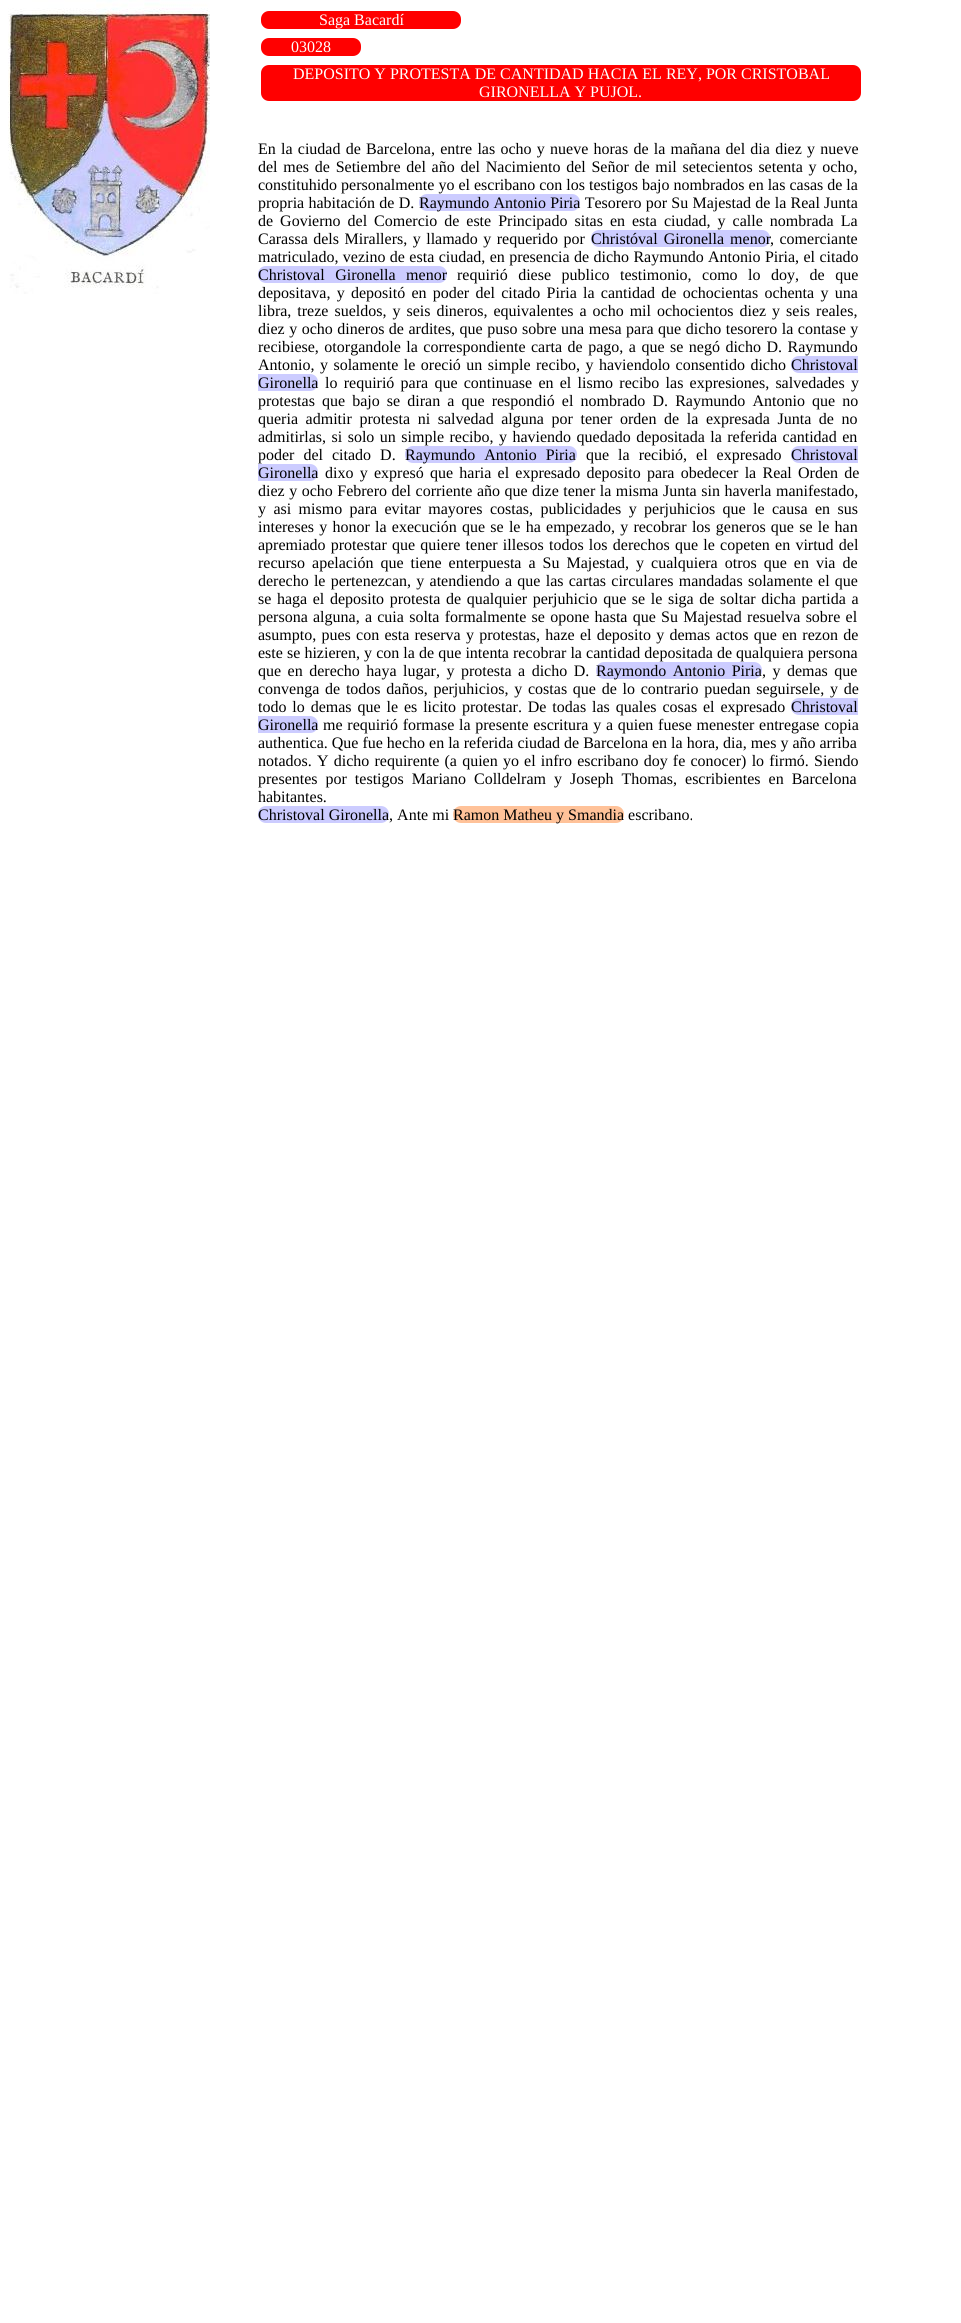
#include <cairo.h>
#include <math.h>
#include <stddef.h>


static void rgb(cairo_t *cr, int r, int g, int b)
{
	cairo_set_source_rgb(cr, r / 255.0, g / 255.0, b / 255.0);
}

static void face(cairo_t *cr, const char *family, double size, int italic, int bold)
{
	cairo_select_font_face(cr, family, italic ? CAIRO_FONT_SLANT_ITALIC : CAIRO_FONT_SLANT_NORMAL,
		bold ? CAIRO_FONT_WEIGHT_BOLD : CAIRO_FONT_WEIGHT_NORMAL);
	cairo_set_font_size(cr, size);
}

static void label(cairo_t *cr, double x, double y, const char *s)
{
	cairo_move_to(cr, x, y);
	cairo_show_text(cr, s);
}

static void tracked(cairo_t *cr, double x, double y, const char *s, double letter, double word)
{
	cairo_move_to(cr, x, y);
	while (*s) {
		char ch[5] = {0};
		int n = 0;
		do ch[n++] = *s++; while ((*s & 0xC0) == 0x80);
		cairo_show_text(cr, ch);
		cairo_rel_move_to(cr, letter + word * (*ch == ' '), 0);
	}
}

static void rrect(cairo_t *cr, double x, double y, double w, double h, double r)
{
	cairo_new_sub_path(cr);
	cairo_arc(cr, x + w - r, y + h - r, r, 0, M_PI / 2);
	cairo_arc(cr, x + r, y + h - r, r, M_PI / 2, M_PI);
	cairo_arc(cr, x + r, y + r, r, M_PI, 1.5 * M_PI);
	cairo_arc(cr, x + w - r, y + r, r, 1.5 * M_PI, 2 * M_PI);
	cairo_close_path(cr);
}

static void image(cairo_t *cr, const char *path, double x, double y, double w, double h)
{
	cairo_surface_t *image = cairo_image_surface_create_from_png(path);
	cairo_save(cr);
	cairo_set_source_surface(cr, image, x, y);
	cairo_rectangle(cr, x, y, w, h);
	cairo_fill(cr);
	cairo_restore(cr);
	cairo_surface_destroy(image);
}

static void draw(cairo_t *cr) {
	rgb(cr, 255, 255, 255);
	cairo_paint(cr);
	image(cr, "image0.png", 8, 0, 202, 294);
	rgb(cr, 255, 0, 0);
	rrect(cr, 261, 11, 200, 18, 8);
	cairo_fill(cr);
	face(cr, "Liberation Serif", 16, 0, 0);
	rgb(cr, 255, 255, 255);
	label(cr, 319, 25, "Saga Bacardí");
	rgb(cr, 255, 0, 0);
	rrect(cr, 261, 38, 100, 18, 8);
	cairo_fill(cr);
	rgb(cr, 255, 255, 255);
	label(cr, 291, 52, "03028");
	rgb(cr, 255, 0, 0);
	rrect(cr, 261, 65, 600, 36, 8);
	cairo_fill(cr);
	rgb(cr, 255, 255, 255);
	label(cr, 293, 79, "DEPOSITO Y PROTESTA DE CANTIDAD HACIA EL REY, POR CRISTOBAL");
	label(cr, 479, 97, "GIRONELLA Y PUJOL.");
	rgb(cr, 0, 0, 0);
	tracked(cr, 258, 154, "En la ciudad de Barcelona, entre las ocho y nueve horas de la mañana del dia diez y nueve", 0, 1.25);
	tracked(cr, 258, 172, "del mes de Setiembre del año del Nacimiento del Señor de mil setecientos setenta y ocho,", 0, 1.75);
	label(cr, 258, 190, "constituhido personalmente yo el escribano con los testigos bajo nombrados en las casas de la");
	tracked(cr, 258, 208, "propria habitación de D.", 0, 0.25);
	rgb(cr, 204, 204, 255);
	rrect(cr, 419, 194, 161, 17, 8);
	cairo_fill(cr);
	rgb(cr, 0, 0, 0);
	tracked(cr, 419, 208, "Raymundo Antonio Piria Tesorero por Su Majestad de la Real Junta", 0, 0.25);
	tracked(cr, 258, 226, "de Govierno del Comercio de este Principado sitas en esta ciudad, y calle nombrada La", 0, 3);
	tracked(cr, 258, 244, "Carassa dels Mirallers, y llamado y requerido por", 0, 1.5);
	rgb(cr, 204, 204, 255);
	rrect(cr, 591, 230, 179, 17, 8);
	cairo_fill(cr);
	rgb(cr, 0, 0, 0);
	tracked(cr, 591, 244, "Christóval Gironella menor", 0, 2);
	tracked(cr, 770, 244, ", comerciante", 0, 1.5);
	tracked(cr, 258, 262, "matriculado, vezino de esta ciudad, en presencia de dicho Raymundo Antonio Piria, el citado", 0, 0.4);
	rgb(cr, 204, 204, 255);
	rrect(cr, 258, 266, 189, 17, 8);
	cairo_fill(cr);
	rgb(cr, 0, 0, 0);
	tracked(cr, 258, 280, "Christoval Gironella menor", 0, 6.5);
	tracked(cr, 457, 280, "requirió diese publico testimonio, como lo doy, de que", 0, 6.5);
	tracked(cr, 258, 298, "depositava, y depositó en poder del citado Piria la cantidad de ochocientas ochenta y una", 0, 2.25);
	tracked(cr, 258, 316, "libra, treze sueldos, y seis dineros, equivalentes a ocho mil ochocientos diez y seis reales,", 0, 2);
	tracked(cr, 258, 334, "diez y ocho dineros de ardites, que puso sobre una mesa para que dicho tesorero la contase y", 0, 0.5);
	tracked(cr, 258, 352, "recibiese, otorgandole la correspondiente carta de pago, a que se negó dicho D. Raymundo", 0, 1.5);
	tracked(cr, 258, 370, "Antonio, y solamente le oreció un simple recibo, y haviendolo consentido dicho", 0, 1.5);
	rgb(cr, 204, 204, 255);
	cairo_new_path(cr);
	cairo_move_to(cr, 799, 356);
	cairo_line_to(cr, 858, 356);
	cairo_line_to(cr, 858, 373);
	cairo_line_to(cr, 799, 373);
	cairo_curve_to(cr, 794.5, 373, 791, 369.5, 791, 365);
	cairo_line_to(cr, 791, 364);
	cairo_curve_to(cr, 791, 359.5, 794.5, 356, 799, 356);
	cairo_close_path(cr);
	cairo_fill(cr);
	rgb(cr, 0, 0, 0);
	label(cr, 791, 370, "Christoval");
	rgb(cr, 204, 204, 255);
	cairo_new_path(cr);
	cairo_move_to(cr, 258, 374);
	cairo_line_to(cr, 310, 374);
	cairo_curve_to(cr, 314.5, 374, 318, 377.5, 318, 382);
	cairo_line_to(cr, 318, 383);
	cairo_curve_to(cr, 318, 387.5, 314.5, 391, 310, 391);
	cairo_line_to(cr, 258, 391);
	cairo_close_path(cr);
	cairo_fill(cr);
	rgb(cr, 0, 0, 0);
	label(cr, 258, 388, "Gironella");
	tracked(cr, 325, 388, "lo requirió para que continuase en el lismo recibo las expresiones, salvedades y", 0, 2.25);
	tracked(cr, 258, 406, "protestas que bajo se diran a que respondió el nombrado D. Raymundo Antonio que no", 0, 3.1);
	tracked(cr, 258, 424, "queria admitir protesta ni salvedad alguna por tener orden de la expresada Junta de no", 0, 3.6);
	tracked(cr, 258, 442, "admitirlas, si solo un simple recibo, y haviendo quedado depositada la referida cantidad en", 0, 1.5);
	tracked(cr, 258, 460, "poder del citado D.", 0, 5);
	rgb(cr, 204, 204, 255);
	rrect(cr, 405, 446, 172, 17, 8);
	cairo_fill(cr);
	rgb(cr, 0, 0, 0);
	tracked(cr, 405, 460, "Raymundo Antonio Piria", 0, 5);
	tracked(cr, 586, 460, "que la recibió, el expresado", 0, 5);
	rgb(cr, 204, 204, 255);
	cairo_new_path(cr);
	cairo_move_to(cr, 799, 446);
	cairo_line_to(cr, 858, 446);
	cairo_line_to(cr, 858, 463);
	cairo_line_to(cr, 799, 463);
	cairo_curve_to(cr, 794.5, 463, 791, 459.5, 791, 455);
	cairo_line_to(cr, 791, 454);
	cairo_curve_to(cr, 791, 449.5, 794.5, 446, 799, 446);
	cairo_close_path(cr);
	cairo_fill(cr);
	rgb(cr, 0, 0, 0);
	label(cr, 791, 460, "Christoval");
	rgb(cr, 204, 204, 255);
	cairo_new_path(cr);
	cairo_move_to(cr, 258, 464);
	cairo_line_to(cr, 310, 464);
	cairo_curve_to(cr, 314.5, 464, 318, 467.5, 318, 472);
	cairo_line_to(cr, 318, 473);
	cairo_curve_to(cr, 318, 477.5, 314.5, 481, 310, 481);
	cairo_line_to(cr, 258, 481);
	cairo_close_path(cr);
	cairo_fill(cr);
	rgb(cr, 0, 0, 0);
	label(cr, 258, 478, "Gironella");
	tracked(cr, 325, 478, "dixo y expresó que haria el expresado deposito para obedecer la Real Orden de", 0, 2.25);
	tracked(cr, 258, 496, "diez y ocho Febrero del corriente año que dize tener la misma Junta sin haverla manifestado,", 0, 0.5);
	tracked(cr, 258, 514, "y asi mismo para evitar mayores costas, publicidades y perjuhicios que le causa en sus", 0, 3.4);
	tracked(cr, 258, 532, "intereses y honor la execución que se le ha empezado, y recobrar los generos que se le han", 0, 1.25);
	tracked(cr, 258, 550, "apremiado protestar que quiere tener illesos todos los derechos que le copeten en virtud del", 0, 1.25);
	tracked(cr, 258, 568, "recurso apelación que tiene enterpuesta a Su Majestad, y cualquiera otros que en via de", 0, 3);
	tracked(cr, 258, 586, "derecho le pertenezcan, y atendiendo a que las cartas circulares mandadas solamente el que", 0, 1.25);
	tracked(cr, 258, 604, "se haga el deposito protesta de qualquier perjuhicio que se le siga de soltar dicha partida a", 0, 1.6);
	tracked(cr, 258, 622, "persona alguna, a cuia solta formalmente se opone hasta que Su Majestad resuelva sobre el", 0, 1.25);
	tracked(cr, 258, 640, "asumpto, pues con esta reserva y protestas, haze el deposito y demas actos que en rezon de", 0, 1.25);
	tracked(cr, 258, 658, "este se hizieren, y con la de que intenta recobrar la cantidad depositada de qualquiera persona", 0, 0.1);
	tracked(cr, 258, 676, "que en derecho haya lugar, y protesta a dicho D.", 0, 2.5);
	rgb(cr, 204, 204, 255);
	rrect(cr, 596, 662, 166, 17, 8);
	cairo_fill(cr);
	rgb(cr, 0, 0, 0);
	tracked(cr, 596, 676, "Raymondo Antonio Piria, y demas que", 0, 2.5);
	tracked(cr, 258, 694, "convenga de todos daños, perjuhicios, y costas que de lo contrario puedan seguirsele, y de", 0, 1.75);
	tracked(cr, 258, 712, "todo lo demas que le es licito protestar. De todas las quales cosas el expresado", 0, 1.9);
	rgb(cr, 204, 204, 255);
	cairo_new_path(cr);
	cairo_move_to(cr, 799, 698);
	cairo_line_to(cr, 858, 698);
	cairo_line_to(cr, 858, 715);
	cairo_line_to(cr, 799, 715);
	cairo_curve_to(cr, 794.5, 715, 791, 711.5, 791, 707);
	cairo_line_to(cr, 791, 706);
	cairo_curve_to(cr, 791, 701.5, 794.5, 698, 799, 698);
	cairo_close_path(cr);
	cairo_fill(cr);
	rgb(cr, 0, 0, 0);
	label(cr, 791, 712, "Christoval");
	rgb(cr, 204, 204, 255);
	cairo_new_path(cr);
	cairo_move_to(cr, 258, 716);
	cairo_line_to(cr, 310, 716);
	cairo_curve_to(cr, 314.5, 716, 318, 719.5, 318, 724);
	cairo_line_to(cr, 318, 725);
	cairo_curve_to(cr, 318, 729.5, 314.5, 733, 310, 733);
	cairo_line_to(cr, 258, 733);
	cairo_close_path(cr);
	cairo_fill(cr);
	rgb(cr, 0, 0, 0);
	label(cr, 258, 730, "Gironella");
	tracked(cr, 323, 730, "me requirió formase la presente escritura y a quien fuese menester entregase copia", 0, 0.75);
	label(cr, 258, 748, "authentica. Que fue hecho en la referida ciudad de Barcelona en la hora, dia, mes y año arriba");
	tracked(cr, 258, 766, "notados. Y dicho requirente (a quien yo el infro escribano doy fe conocer) lo firmó. Siendo", 0, 1.2);
	tracked(cr, 258, 784, "presentes por testigos Mariano Colldelram y Joseph Thomas, escribientes en Barcelona", 0, 4);
	label(cr, 258, 802, "habitantes.");
	rgb(cr, 204, 204, 255);
	rrect(cr, 258, 806, 131, 17, 8);
	cairo_fill(cr);
	rgb(cr, 0, 0, 0);
	label(cr, 258, 820, "Christoval Gironella, Ante mi");
	rgb(cr, 255, 194, 153);
	rrect(cr, 453, 806, 171, 17, 8);
	cairo_fill(cr);
	rgb(cr, 0, 0, 0);
	label(cr, 453, 820, "Ramon Matheu y Smandia escribano.");
}

int main(void) {
	cairo_surface_t *surface = cairo_image_surface_create(CAIRO_FORMAT_RGB24, 961, 2323);
	cairo_t *cr = cairo_create(surface);
	cairo_font_options_t *options = cairo_font_options_create();
	cairo_font_options_set_hint_metrics(options, CAIRO_HINT_METRICS_OFF);
	cairo_font_options_set_hint_style(options, CAIRO_HINT_STYLE_NONE);
	cairo_set_font_options(cr, options);
	cairo_set_miter_limit(cr, 4);
	draw(cr);
	cairo_surface_write_to_png(surface, "render.png");
	cairo_font_options_destroy(options);
	cairo_destroy(cr);
	cairo_surface_destroy(surface);
	return 0;
}
